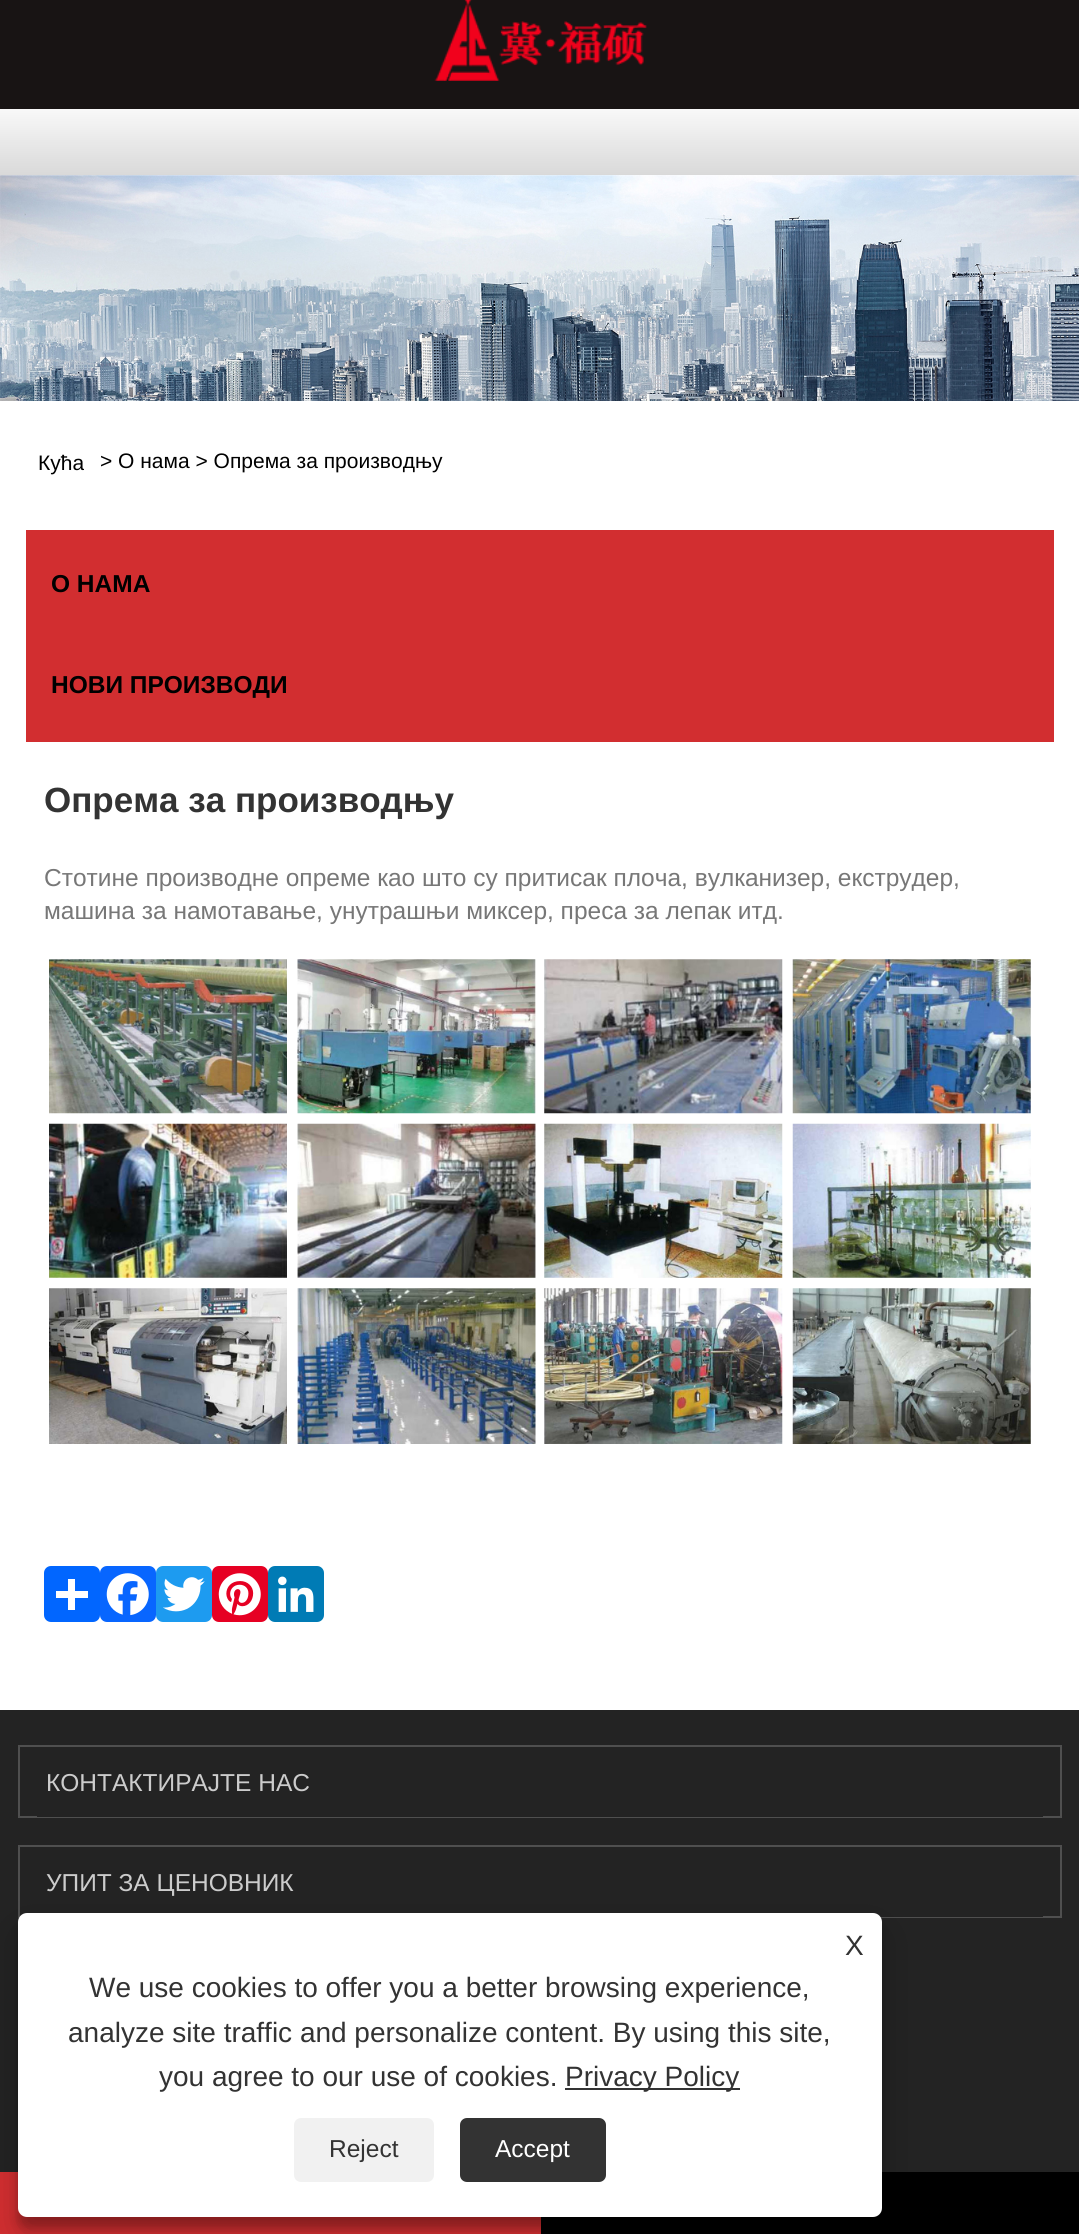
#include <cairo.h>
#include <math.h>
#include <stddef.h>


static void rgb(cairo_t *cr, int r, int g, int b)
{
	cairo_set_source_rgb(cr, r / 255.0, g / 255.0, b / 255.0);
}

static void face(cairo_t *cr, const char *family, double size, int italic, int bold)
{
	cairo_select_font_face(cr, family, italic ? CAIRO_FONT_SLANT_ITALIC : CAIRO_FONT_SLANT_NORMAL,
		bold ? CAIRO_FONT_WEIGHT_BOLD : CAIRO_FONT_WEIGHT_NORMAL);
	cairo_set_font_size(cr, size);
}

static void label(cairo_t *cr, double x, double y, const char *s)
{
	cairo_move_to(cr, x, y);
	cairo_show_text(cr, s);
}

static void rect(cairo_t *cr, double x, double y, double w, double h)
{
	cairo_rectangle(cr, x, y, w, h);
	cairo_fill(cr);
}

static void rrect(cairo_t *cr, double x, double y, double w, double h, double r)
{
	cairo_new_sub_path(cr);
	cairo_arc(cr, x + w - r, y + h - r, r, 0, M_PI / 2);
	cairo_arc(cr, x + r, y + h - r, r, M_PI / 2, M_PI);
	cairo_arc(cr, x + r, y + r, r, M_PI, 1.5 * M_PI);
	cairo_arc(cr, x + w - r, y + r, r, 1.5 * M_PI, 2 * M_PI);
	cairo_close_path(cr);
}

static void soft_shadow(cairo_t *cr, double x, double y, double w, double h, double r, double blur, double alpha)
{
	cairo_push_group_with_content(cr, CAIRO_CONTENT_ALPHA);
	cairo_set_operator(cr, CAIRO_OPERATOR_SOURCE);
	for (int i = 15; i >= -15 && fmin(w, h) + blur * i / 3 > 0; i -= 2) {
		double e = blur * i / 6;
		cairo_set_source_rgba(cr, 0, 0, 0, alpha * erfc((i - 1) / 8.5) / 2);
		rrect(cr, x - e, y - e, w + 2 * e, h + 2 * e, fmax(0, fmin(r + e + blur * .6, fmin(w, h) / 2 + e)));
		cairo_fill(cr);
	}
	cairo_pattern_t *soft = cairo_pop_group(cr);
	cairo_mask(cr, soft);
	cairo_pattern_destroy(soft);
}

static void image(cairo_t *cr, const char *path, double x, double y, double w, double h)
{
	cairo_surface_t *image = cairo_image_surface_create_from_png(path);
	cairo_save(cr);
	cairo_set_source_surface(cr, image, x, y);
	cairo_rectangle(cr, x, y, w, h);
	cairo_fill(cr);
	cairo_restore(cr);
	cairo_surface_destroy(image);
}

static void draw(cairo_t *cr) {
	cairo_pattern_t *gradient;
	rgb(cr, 255, 255, 255);
	cairo_paint(cr);
	rgb(cr, 24, 20, 20);
	rect(cr, 0, 0, 1079, 109);
	image(cr, "image0.png", 434, 0, 213, 81);
	gradient = cairo_pattern_create_linear(540, 108, 540, 175);
	cairo_pattern_add_color_stop_rgba(gradient, 0, 0.976, 0.976, 0.976, 1);
	cairo_pattern_add_color_stop_rgba(gradient, 1, 0.851, 0.851, 0.851, 1);
	cairo_set_source(cr, gradient);
	cairo_pattern_destroy(gradient);
	rect(cr, 0, 109, 1079, 66);
	image(cr, "image1.png", 0, 175, 1079, 226);
	face(cr, "Liberation Sans", 21, 0, 0);
	rgb(cr, 0, 0, 0);
	label(cr, 38, 470, "Кућа");
	label(cr, 100, 468, "> О нама > Опрема за производњу");
	rgb(cr, 210, 46, 48);
	rect(cr, 26, 530, 1028, 212);
	face(cr, "Liberation Sans", 24.5, 0, 1);
	rgb(cr, 0, 0, 0);
	label(cr, 51, 592, "О НАМА");
	label(cr, 51, 693, "НОВИ ПРОИЗВОДИ");
	face(cr, "Liberation Sans", 35, 0, 1);
	rgb(cr, 51, 51, 51);
	label(cr, 44, 812, "Опрема за производњу");
	face(cr, "Liberation Sans", 24.5, 0, 0);
	rgb(cr, 119, 119, 119);
	label(cr, 44, 886, "Стотине производне опреме као што су притисак плоча, вулканизер, екструдер,");
	label(cr, 44, 919, "машина за намотавање, унутрашњи миксер, преса за лепак итд.");
	image(cr, "image2.png", 49, 959, 238, 155);
	image(cr, "image3.png", 297, 959, 239, 155);
	image(cr, "image4.png", 544, 959, 239, 155);
	image(cr, "image5.png", 792, 959, 239, 155);
	image(cr, "image6.png", 49, 1123, 238, 155);
	image(cr, "image7.png", 297, 1123, 239, 155);
	image(cr, "image8.png", 544, 1123, 239, 155);
	image(cr, "image9.png", 792, 1123, 239, 155);
	image(cr, "image10.png", 49, 1288, 238, 156);
	image(cr, "image11.png", 297, 1288, 239, 156);
	image(cr, "image12.png", 544, 1288, 239, 156);
	image(cr, "image13.png", 792, 1288, 239, 156);
	rgb(cr, 1, 102, 255);
	rrect(cr, 44, 1566, 56, 56, 7);
	cairo_fill(cr);
	rgb(cr, 255, 255, 255);
	rect(cr, 68, 1579, 7, 31);
	rect(cr, 56, 1591, 32, 7);
	rgb(cr, 8, 102, 255);
	rrect(cr, 100, 1566, 56, 56, 7);
	cairo_fill(cr);
	image(cr, "image14.png", 106, 1573, 43, 43);
	rgb(cr, 29, 155, 240);
	rrect(cr, 156, 1566, 56, 56, 7);
	cairo_fill(cr);
	image(cr, "image15.png", 163, 1577, 42, 35);
	rgb(cr, 230, 0, 35);
	rrect(cr, 212, 1566, 56, 56, 7);
	cairo_fill(cr);
	image(cr, "image16.png", 218, 1573, 43, 43);
	rgb(cr, 0, 123, 181);
	rrect(cr, 268, 1566, 56, 56, 7);
	cairo_fill(cr);
	image(cr, "image17.png", 278, 1576, 36, 36);
	rgb(cr, 0, 0, 0);
	rect(cr, 541, 2172, 538, 62);
	rgb(cr, 210, 46, 48);
	rect(cr, 0, 2172, 541, 62);
	rgb(cr, 35, 35, 35);
	rect(cr, 0, 1710, 1079, 462);
	cairo_rectangle(cr, 19, 1746, 1042, 71);
	rgb(cr, 79, 79, 79);
	cairo_stroke(cr);
	rgb(cr, 34, 34, 34);
	rect(cr, 37, 1816, 1006, 1);
	rgb(cr, 204, 204, 204);
	label(cr, 46, 1791, "КОНТАКТИРАЈТЕ НАС");
	cairo_rectangle(cr, 19, 1846, 1042, 71);
	rgb(cr, 79, 79, 79);
	cairo_stroke(cr);
	rgb(cr, 34, 34, 34);
	rect(cr, 878, 1916, 165, 1);
	rgb(cr, 204, 204, 204);
	label(cr, 46, 1891, "УПИТ ЗА ЦЕНОВНИК");
	rgb(cr, 0, 0, 0);
	soft_shadow(cr, 18, 1923, 864, 305, 9, 5, 0.23);
	soft_shadow(cr, 18, 1930, 864, 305, 9, 17.5, 0.19);
	rgb(cr, 255, 255, 255);
	rrect(cr, 18, 1913, 864, 304, 9);
	cairo_fill(cr);
	face(cr, "Liberation Sans", 28, 0, 0);
	rgb(cr, 51, 51, 51);
	label(cr, 845, 1955, "X");
	label(cr, 89, 1997, "We use cookies to offer you a better browsing experience,");
	label(cr, 68, 2042, "analyze site traffic and personalize content. By using this site,");
	label(cr, 159, 2086, "you agree to our use of cookies.");
	rect(cr, 565, 2088, 175, 2);
	label(cr, 565, 2086, "Privacy Policy");
	rgb(cr, 241, 241, 241);
	rrect(cr, 294, 2118, 140, 64, 7);
	cairo_fill(cr);
	face(cr, "Liberation Sans", 24.5, 0, 0);
	rgb(cr, 51, 51, 51);
	label(cr, 329, 2157, "Reject");
	rrect(cr, 460, 2118, 146, 64, 7);
	cairo_fill(cr);
	rgb(cr, 255, 255, 255);
	label(cr, 495, 2157, "Accept");
}

int main(void) {
	cairo_surface_t *surface = cairo_image_surface_create(CAIRO_FORMAT_RGB24, 1079, 2234);
	cairo_t *cr = cairo_create(surface);
	cairo_font_options_t *options = cairo_font_options_create();
	cairo_font_options_set_hint_metrics(options, CAIRO_HINT_METRICS_OFF);
	cairo_font_options_set_hint_style(options, CAIRO_HINT_STYLE_NONE);
	cairo_set_font_options(cr, options);
	cairo_set_miter_limit(cr, 4);
	draw(cr);
	cairo_surface_write_to_png(surface, "render.png");
	cairo_font_options_destroy(options);
	cairo_destroy(cr);
	cairo_surface_destroy(surface);
	return 0;
}
